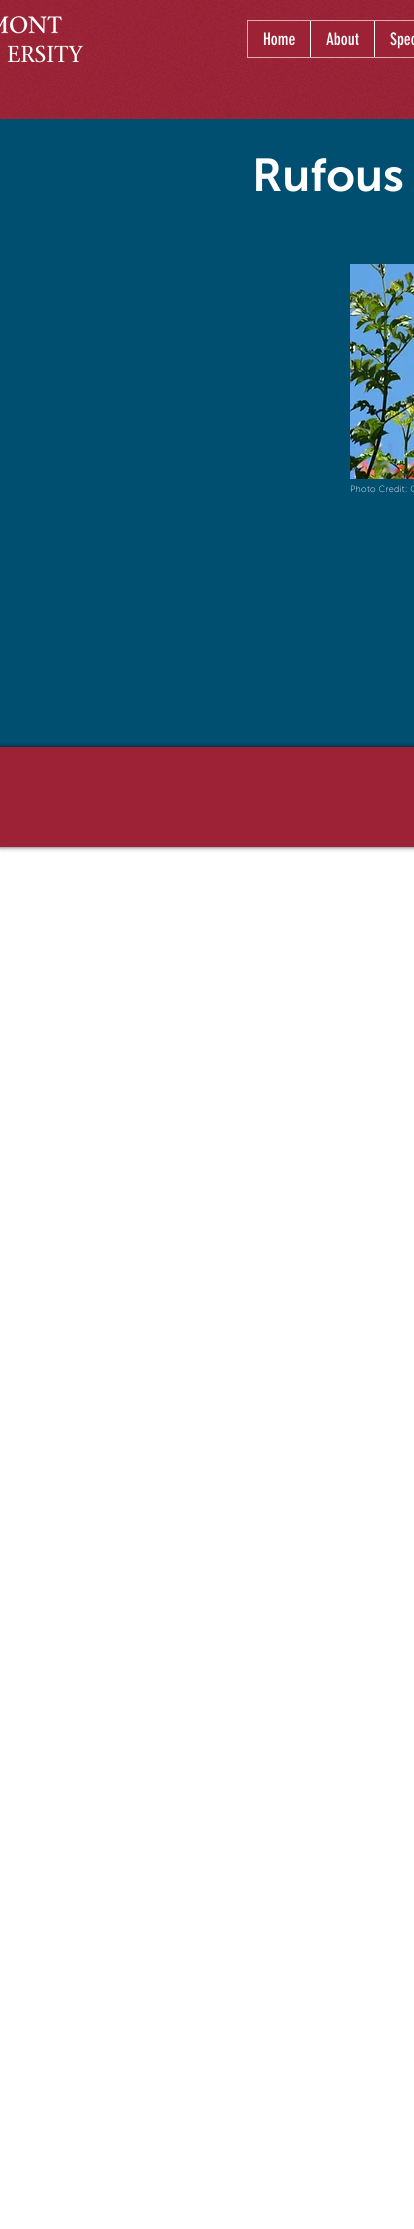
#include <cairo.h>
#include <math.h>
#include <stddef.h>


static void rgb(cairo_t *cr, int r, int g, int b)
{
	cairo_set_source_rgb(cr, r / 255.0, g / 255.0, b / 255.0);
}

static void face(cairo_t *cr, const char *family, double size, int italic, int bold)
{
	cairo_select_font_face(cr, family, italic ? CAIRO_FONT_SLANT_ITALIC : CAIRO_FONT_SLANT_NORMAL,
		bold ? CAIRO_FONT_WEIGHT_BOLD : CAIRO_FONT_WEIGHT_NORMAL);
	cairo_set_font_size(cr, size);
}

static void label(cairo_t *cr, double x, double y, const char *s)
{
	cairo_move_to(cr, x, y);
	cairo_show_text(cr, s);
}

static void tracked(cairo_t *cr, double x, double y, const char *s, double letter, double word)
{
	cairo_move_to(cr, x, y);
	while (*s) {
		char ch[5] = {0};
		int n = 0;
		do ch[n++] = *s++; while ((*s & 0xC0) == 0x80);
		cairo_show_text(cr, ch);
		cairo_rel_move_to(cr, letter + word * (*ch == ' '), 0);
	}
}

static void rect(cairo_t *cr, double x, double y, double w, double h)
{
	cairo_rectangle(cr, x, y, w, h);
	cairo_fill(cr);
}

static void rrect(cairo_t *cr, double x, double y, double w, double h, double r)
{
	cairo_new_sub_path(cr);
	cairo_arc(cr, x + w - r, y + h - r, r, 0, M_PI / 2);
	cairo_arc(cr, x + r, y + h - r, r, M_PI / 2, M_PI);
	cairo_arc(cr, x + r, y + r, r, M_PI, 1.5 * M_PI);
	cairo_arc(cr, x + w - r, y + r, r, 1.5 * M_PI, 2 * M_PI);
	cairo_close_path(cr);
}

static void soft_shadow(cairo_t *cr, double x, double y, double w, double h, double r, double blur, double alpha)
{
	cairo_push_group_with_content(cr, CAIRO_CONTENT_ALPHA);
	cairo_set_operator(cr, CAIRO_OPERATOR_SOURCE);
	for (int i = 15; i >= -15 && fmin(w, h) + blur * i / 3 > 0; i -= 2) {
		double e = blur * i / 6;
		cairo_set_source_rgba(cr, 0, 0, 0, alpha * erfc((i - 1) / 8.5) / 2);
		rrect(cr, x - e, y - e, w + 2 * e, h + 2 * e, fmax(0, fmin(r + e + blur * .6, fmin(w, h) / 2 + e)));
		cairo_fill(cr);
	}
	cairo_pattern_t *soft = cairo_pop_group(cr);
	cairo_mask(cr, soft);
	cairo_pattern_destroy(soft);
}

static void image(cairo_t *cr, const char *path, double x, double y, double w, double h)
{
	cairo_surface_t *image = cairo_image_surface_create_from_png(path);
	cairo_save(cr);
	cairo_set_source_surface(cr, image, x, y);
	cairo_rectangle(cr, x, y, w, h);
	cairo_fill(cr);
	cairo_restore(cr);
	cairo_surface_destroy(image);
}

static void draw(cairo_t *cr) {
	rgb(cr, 255, 255, 255);
	cairo_paint(cr);
	rgb(cr, 157, 34, 53);
	rect(cr, 0, 0, 414, 119);
	image(cr, "image0.png", 0, 0, 414, 119);
	cairo_rectangle(cr, 247.5, 20.5, 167, 37);
	cairo_fill_preserve(cr);
	rgb(cr, 220, 175, 182);
	cairo_set_line_width(cr, 1);
	cairo_stroke(cr);
	face(cr, "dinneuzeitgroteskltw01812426", 17, 0, 0);
	rgb(cr, 255, 255, 255);
	label(cr, 263, 45, "Home");
	rect(cr, 310, 21, 1, 36);
	label(cr, 326, 45, "About");
	rect(cr, 374, 21, 1, 36);
	label(cr, 390, 45, "Spec");
	image(cr, "image1.png", 0, 16, 62, 18);
	face(cr, "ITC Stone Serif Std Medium", 23, 0, 0);
	label(cr, 7, 62, "ERSITY");
	rgb(cr, 0, 79, 113);
	rect(cr, 0, 119, 414, 628);
	face(cr, "Museo Sans SemiBold", 46, 0, 0);
	rgb(cr, 255, 255, 255);
	label(cr, 252, 191, "Rufous");
	image(cr, "image2.png", 350, 264, 64, 215);
	face(cr, "Museo Sans ExtraLight", 9, 0, 0);
	tracked(cr, 350, 492, "Photo Credit: C", 0.25, 0);
	rgb(cr, 0, 0, 0);
	soft_shadow(cr, 0, 747, 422, 100, 0, 2.5, 0.7);
	rgb(cr, 157, 34, 53);
	rect(cr, 0, 747, 414, 100);
}

int main(void) {
	cairo_surface_t *surface = cairo_image_surface_create(CAIRO_FORMAT_RGB24, 414, 2229);
	cairo_t *cr = cairo_create(surface);
	cairo_font_options_t *options = cairo_font_options_create();
	cairo_font_options_set_hint_metrics(options, CAIRO_HINT_METRICS_OFF);
	cairo_font_options_set_hint_style(options, CAIRO_HINT_STYLE_NONE);
	cairo_set_font_options(cr, options);
	cairo_set_miter_limit(cr, 4);
	draw(cr);
	cairo_surface_write_to_png(surface, "render.png");
	cairo_font_options_destroy(options);
	cairo_destroy(cr);
	cairo_surface_destroy(surface);
	return 0;
}
